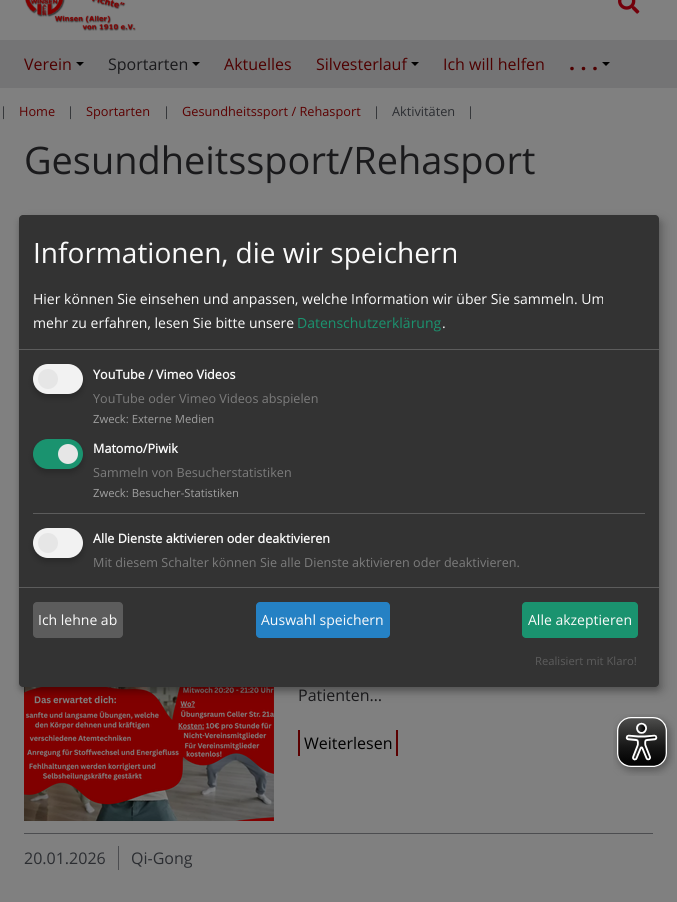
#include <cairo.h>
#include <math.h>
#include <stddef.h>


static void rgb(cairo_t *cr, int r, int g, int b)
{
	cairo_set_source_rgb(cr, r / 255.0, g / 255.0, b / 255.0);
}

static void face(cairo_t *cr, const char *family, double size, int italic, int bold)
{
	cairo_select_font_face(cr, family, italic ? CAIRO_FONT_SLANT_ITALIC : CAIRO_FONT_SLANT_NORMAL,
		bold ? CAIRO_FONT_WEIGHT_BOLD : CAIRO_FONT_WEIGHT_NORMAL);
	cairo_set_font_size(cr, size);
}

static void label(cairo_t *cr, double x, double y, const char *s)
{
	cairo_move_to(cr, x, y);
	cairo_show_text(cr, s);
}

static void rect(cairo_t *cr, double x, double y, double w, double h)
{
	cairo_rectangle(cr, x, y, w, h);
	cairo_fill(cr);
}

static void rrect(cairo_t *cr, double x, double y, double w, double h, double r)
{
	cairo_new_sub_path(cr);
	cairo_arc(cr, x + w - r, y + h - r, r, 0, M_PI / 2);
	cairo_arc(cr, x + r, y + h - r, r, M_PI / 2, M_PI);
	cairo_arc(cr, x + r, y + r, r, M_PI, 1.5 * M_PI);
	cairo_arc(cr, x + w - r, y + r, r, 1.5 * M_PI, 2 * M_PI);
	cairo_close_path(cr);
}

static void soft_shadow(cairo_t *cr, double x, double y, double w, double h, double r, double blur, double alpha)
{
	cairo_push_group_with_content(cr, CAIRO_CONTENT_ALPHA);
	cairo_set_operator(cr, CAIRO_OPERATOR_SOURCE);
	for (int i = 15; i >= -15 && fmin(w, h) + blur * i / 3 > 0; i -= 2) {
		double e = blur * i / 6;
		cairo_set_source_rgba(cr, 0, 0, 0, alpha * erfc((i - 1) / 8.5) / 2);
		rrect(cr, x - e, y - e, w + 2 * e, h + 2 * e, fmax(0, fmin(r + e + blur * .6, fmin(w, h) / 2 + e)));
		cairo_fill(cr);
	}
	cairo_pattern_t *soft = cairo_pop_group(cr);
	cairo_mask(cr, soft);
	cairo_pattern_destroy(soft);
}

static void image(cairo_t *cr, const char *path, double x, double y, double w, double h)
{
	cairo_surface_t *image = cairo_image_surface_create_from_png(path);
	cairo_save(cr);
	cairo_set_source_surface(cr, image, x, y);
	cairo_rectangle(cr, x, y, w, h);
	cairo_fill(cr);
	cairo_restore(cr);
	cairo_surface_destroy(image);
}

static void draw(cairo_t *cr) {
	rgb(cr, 128, 128, 128);
	cairo_paint(cr);
	image(cr, "image0.png", 25, 0, 111, 31);
	image(cr, "image1.png", 618, 0, 22, 14);
	rgb(cr, 116, 116, 117);
	rect(cr, 0, 40, 677, 48);
	face(cr, "Open Sans", 16, 0, 0);
	rgb(cr, 78, 0, 0);
	label(cr, 24, 70, "Verein");
	rgb(cr, 0, 0, 0);
	cairo_new_path(cr);
	cairo_move_to(cr, 76, 62);
	cairo_line_to(cr, 84, 62);
	cairo_line_to(cr, 80, 66);
	cairo_close_path(cr);
	cairo_fill(cr);
	rgb(cr, 26, 26, 28);
	label(cr, 108, 70, "Sportarten");
	rgb(cr, 0, 0, 0);
	cairo_new_path(cr);
	cairo_move_to(cr, 192, 62);
	cairo_line_to(cr, 200, 62);
	cairo_line_to(cr, 196, 66);
	cairo_close_path(cr);
	cairo_fill(cr);
	rgb(cr, 78, 0, 0);
	label(cr, 224, 70, "Aktuelles");
	label(cr, 316, 70, "Silvesterlauf");
	rgb(cr, 0, 0, 0);
	cairo_new_path(cr);
	cairo_move_to(cr, 411, 62);
	cairo_line_to(cr, 419, 62);
	cairo_line_to(cr, 415, 66);
	cairo_close_path(cr);
	cairo_fill(cr);
	rgb(cr, 78, 0, 0);
	label(cr, 443, 70, "Ich will helfen");
	rgb(cr, 0, 0, 0);
	cairo_new_path(cr);
	cairo_move_to(cr, 602, 62);
	cairo_line_to(cr, 610, 62);
	cairo_line_to(cr, 606, 66);
	cairo_close_path(cr);
	cairo_fill(cr);
	face(cr, "Open Sans", 21, 0, 1);
	rgb(cr, 78, 0, 0);
	label(cr, 569, 70, ". . .");
	face(cr, "Open Sans", 12.75, 0, 0);
	rgb(cr, 43, 45, 49);
	label(cr, 0, 116, "|");
	rgb(cr, 91, 0, 0);
	label(cr, 19, 116, "Home");
	rgb(cr, 43, 45, 49);
	label(cr, 67, 116, "|");
	rgb(cr, 91, 0, 0);
	label(cr, 86, 116, "Sportarten");
	rgb(cr, 43, 45, 49);
	label(cr, 163, 116, "|");
	rgb(cr, 91, 0, 0);
	label(cr, 182, 116, "Gesundheitssport / Rehasport");
	rgb(cr, 43, 45, 49);
	label(cr, 373, 116, "|");
	label(cr, 392, 116, "Aktivitäten");
	label(cr, 467, 116, "|");
	face(cr, "Open Sans", 37.9, 0, 0);
	rgb(cr, 26, 26, 28);
	label(cr, 24, 174, "Gesundheitssport/Rehasport");
	image(cr, "image2.png", 24, 687, 250, 134);
	face(cr, "Open Sans", 16, 0, 0);
	label(cr, 298, 701, "Patienten…");
	rgb(cr, 0, 0, 0);
	label(cr, 304, 749, "Weiterlesen");
	rgb(cr, 91, 0, 0);
	rect(cr, 396, 730, 2, 26);
	rect(cr, 298, 730, 2, 26);
	rgb(cr, 76, 77, 80);
	rect(cr, 24, 833, 629, 1);
	rect(cr, 118, 846, 1, 24);
	rgb(cr, 43, 45, 49);
	label(cr, 24, 864, "20.01.2026");
	label(cr, 131, 864, "Qi-Gong");
	rgb(cr, 0, 0, 0);
	soft_shadow(cr, 24, 220, 640, 472, 4, 5, 0.19);
	soft_shadow(cr, 19, 219, 640, 472, 4, 3, 0.2);
	rgb(cr, 51, 51, 51);
	rrect(cr, 19, 215, 640, 472, 4);
	cairo_fill(cr);
	rgb(cr, 92, 92, 92);
	rect(cr, 19, 349, 640, 1);
	face(cr, "Open Sans", 28, 0, 0);
	rgb(cr, 250, 250, 250);
	label(cr, 33, 263, "Informationen, die wir speichern");
	face(cr, "Open Sans", 14, 0, 0);
	label(cr, 33, 304, "Hier können Sie einsehen und anpassen, welche Information wir über Sie sammeln. Um");
	label(cr, 33, 328, "mehr zu erfahren, lesen Sie bitte unsere");
	rgb(cr, 26, 147, 111);
	label(cr, 297, 328, "Datenschutzerklärung");
	rgb(cr, 250, 250, 250);
	label(cr, 442, 328, ".");
	rgb(cr, 0, 0, 0);
	soft_shadow(cr, 33, 368, 50, 30, 15, 3, 0.2);
	rgb(cr, 242, 242, 242);
	rrect(cr, 33, 364, 50, 30, 15);
	cairo_fill(cr);
	rgb(cr, 230, 230, 230);
	cairo_arc(cr, 48, 379, 10, 0, 2 * M_PI);
	cairo_fill(cr);
	face(cr, "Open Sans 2", 12.6, 0, 1);
	rgb(cr, 250, 250, 250);
	label(cr, 93, 379, "YouTube / Vimeo Videos");
	face(cr, "Open Sans", 12.6, 0, 0);
	rgb(cr, 124, 124, 124);
	label(cr, 93, 403, "YouTube oder Vimeo Videos abspielen");
	face(cr, "Open Sans", 11.25, 0, 0);
	rgb(cr, 160, 160, 160);
	label(cr, 93, 423, "Zweck: Externe Medien");
	rgb(cr, 0, 0, 0);
	soft_shadow(cr, 33, 443, 50, 30, 15, 3, 0.2);
	rgb(cr, 26, 147, 111);
	rrect(cr, 33, 439, 50, 30, 15);
	cairo_fill(cr);
	rgb(cr, 230, 230, 230);
	cairo_arc(cr, 68, 454, 10, 0, 2 * M_PI);
	cairo_fill(cr);
	face(cr, "Open Sans 2", 12.6, 0, 1);
	rgb(cr, 250, 250, 250);
	label(cr, 93, 453, "Matomo/Piwik");
	face(cr, "Open Sans", 12.6, 0, 0);
	rgb(cr, 124, 124, 124);
	label(cr, 93, 477, "Sammeln von Besucherstatistiken");
	face(cr, "Open Sans", 11.25, 0, 0);
	rgb(cr, 160, 160, 160);
	label(cr, 93, 497, "Zweck: Besucher-Statistiken");
	rgb(cr, 92, 92, 92);
	rect(cr, 33, 513, 612, 1);
	rgb(cr, 0, 0, 0);
	soft_shadow(cr, 33, 532, 50, 30, 15, 3, 0.2);
	rgb(cr, 242, 242, 242);
	rrect(cr, 33, 528, 50, 30, 15);
	cairo_fill(cr);
	rgb(cr, 230, 230, 230);
	cairo_arc(cr, 48, 543, 10, 0, 2 * M_PI);
	cairo_fill(cr);
	face(cr, "Open Sans 2", 12.6, 0, 1);
	rgb(cr, 250, 250, 250);
	label(cr, 93, 543, "Alle Dienste aktivieren oder deaktivieren");
	face(cr, "Open Sans", 12.6, 0, 0);
	rgb(cr, 124, 124, 124);
	label(cr, 93, 567, "Mit diesem Schalter können Sie alle Dienste aktivieren oder deaktivieren.");
	rgb(cr, 92, 92, 92);
	rect(cr, 19, 587, 640, 1);
	rrect(cr, 33, 602, 90, 36, 4);
	cairo_fill(cr);
	face(cr, "Open Sans", 14, 0, 0);
	rgb(cr, 250, 250, 250);
	label(cr, 38, 625, "Ich lehne ab");
	rgb(cr, 37, 129, 196);
	rrect(cr, 256, 602, 134, 36, 4);
	cairo_fill(cr);
	rgb(cr, 250, 250, 250);
	label(cr, 261, 625, "Auswahl speichern");
	rgb(cr, 26, 147, 111);
	rrect(cr, 522, 602, 116, 36, 4);
	cairo_fill(cr);
	rgb(cr, 250, 250, 250);
	label(cr, 528, 625, "Alle akzeptieren");
	face(cr, "Open Sans", 11.25, 0, 0);
	rgb(cr, 92, 92, 92);
	label(cr, 535, 665, "Realisiert mit Klaro!");
	image(cr, "image3.png", 613, 714, 62, 62);
}

int main(void) {
	cairo_surface_t *surface = cairo_image_surface_create(CAIRO_FORMAT_RGB24, 677, 902);
	cairo_t *cr = cairo_create(surface);
	cairo_font_options_t *options = cairo_font_options_create();
	cairo_font_options_set_hint_metrics(options, CAIRO_HINT_METRICS_OFF);
	cairo_font_options_set_hint_style(options, CAIRO_HINT_STYLE_NONE);
	cairo_set_font_options(cr, options);
	cairo_set_miter_limit(cr, 4);
	draw(cr);
	cairo_surface_write_to_png(surface, "render.png");
	cairo_font_options_destroy(options);
	cairo_destroy(cr);
	cairo_surface_destroy(surface);
	return 0;
}
